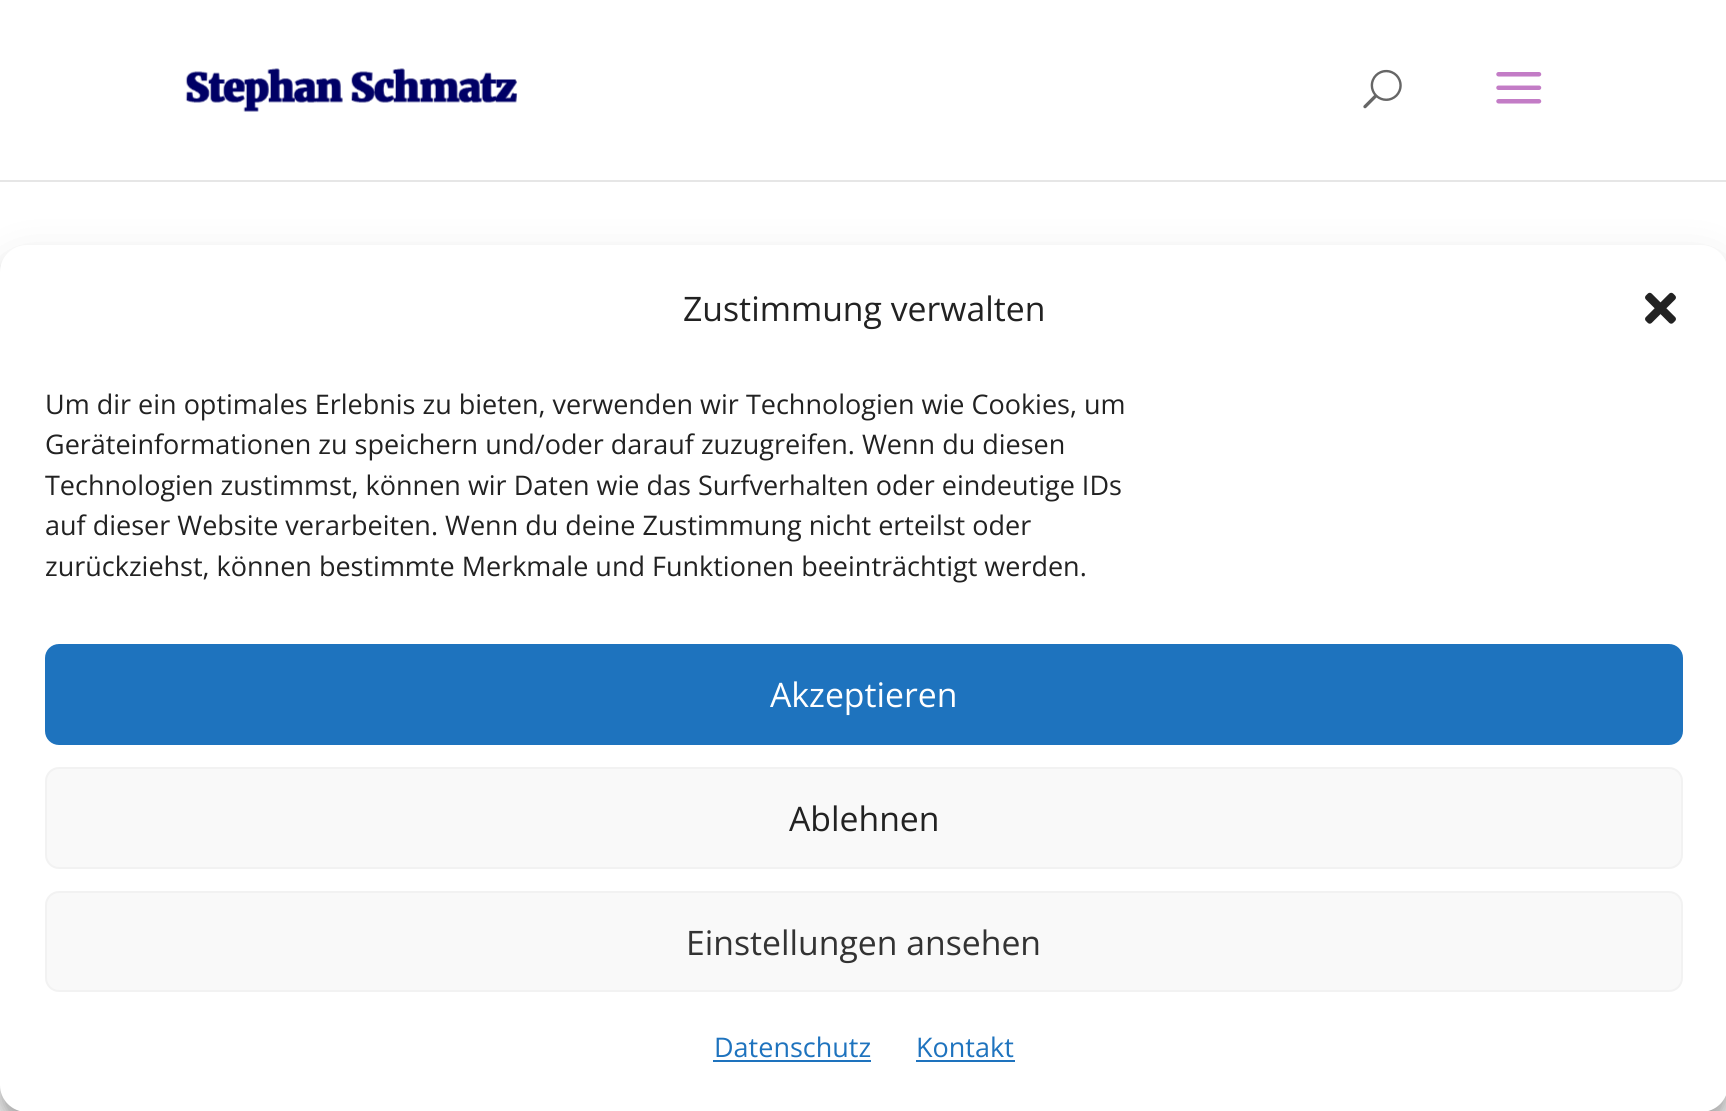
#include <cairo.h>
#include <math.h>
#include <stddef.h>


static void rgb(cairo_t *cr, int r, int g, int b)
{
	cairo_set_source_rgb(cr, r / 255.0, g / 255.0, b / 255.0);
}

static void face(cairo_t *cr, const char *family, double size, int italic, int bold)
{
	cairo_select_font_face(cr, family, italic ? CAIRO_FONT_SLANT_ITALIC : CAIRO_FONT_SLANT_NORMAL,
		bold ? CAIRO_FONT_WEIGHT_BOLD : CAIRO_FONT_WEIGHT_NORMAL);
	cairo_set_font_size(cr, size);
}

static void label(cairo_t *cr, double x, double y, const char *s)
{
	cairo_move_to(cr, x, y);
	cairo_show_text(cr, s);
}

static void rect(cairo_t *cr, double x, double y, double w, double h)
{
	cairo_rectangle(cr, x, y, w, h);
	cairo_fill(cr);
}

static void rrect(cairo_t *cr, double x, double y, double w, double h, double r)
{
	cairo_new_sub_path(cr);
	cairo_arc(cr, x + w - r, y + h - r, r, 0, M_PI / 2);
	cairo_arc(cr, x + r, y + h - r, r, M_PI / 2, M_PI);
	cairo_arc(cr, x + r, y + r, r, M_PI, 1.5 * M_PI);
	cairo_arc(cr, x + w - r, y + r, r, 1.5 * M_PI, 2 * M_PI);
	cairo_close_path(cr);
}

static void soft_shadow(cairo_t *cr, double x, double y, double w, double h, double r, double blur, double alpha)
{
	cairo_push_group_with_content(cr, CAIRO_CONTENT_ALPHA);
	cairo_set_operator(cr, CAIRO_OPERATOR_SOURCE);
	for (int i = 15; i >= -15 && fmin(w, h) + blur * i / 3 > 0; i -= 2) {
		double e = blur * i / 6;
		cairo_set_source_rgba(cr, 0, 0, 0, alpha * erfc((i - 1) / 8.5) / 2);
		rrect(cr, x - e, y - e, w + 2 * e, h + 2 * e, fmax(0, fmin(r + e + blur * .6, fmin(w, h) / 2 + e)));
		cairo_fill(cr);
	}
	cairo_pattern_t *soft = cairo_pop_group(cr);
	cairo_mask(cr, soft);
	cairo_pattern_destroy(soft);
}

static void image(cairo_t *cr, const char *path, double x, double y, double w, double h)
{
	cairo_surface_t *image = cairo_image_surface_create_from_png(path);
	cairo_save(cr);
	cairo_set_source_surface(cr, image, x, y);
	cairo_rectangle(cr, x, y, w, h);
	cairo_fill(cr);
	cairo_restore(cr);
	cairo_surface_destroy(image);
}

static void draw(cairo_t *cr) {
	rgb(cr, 255, 255, 255);
	cairo_paint(cr);
	rgb(cr, 230, 230, 230);
	rect(cr, 0, 180, 1726, 2);
	image(cr, "image0.png", 185, 68, 333, 44);
	image(cr, "image1.png", 1363, 69, 39, 40);
	image(cr, "image2.png", 1496, 72, 46, 32);
	rgb(cr, 0, 0, 0);
	soft_shadow(cr, 0, 259, 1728, 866, 27, 7, 0.23);
	soft_shadow(cr, 0, 268, 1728, 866, 27, 22.5, 0.19);
	rgb(cr, 255, 255, 255);
	rrect(cr, 0, 245, 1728, 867, 27);
	cairo_fill(cr);
	face(cr, "Open Sans", 33.75, 0, 0);
	rgb(cr, 34, 34, 34);
	label(cr, 683, 321, "Zustimmung verwalten");
	image(cr, "image3.png", 1645, 292, 31, 32);
	face(cr, "Open Sans", 27, 0, 0);
	label(cr, 45, 414, "Um dir ein optimales Erlebnis zu bieten, verwenden wir Technologien wie Cookies, um");
	label(cr, 45, 454, "Geräteinformationen zu speichern und/oder darauf zuzugreifen. Wenn du diesen");
	label(cr, 45, 495, "Technologien zustimmst, können wir Daten wie das Surfverhalten oder eindeutige IDs");
	label(cr, 45, 535, "auf dieser Website verarbeiten. Wenn du deine Zustimmung nicht erteilst oder");
	label(cr, 45, 576, "zurückziehst, können bestimmte Merkmale und Funktionen beeinträchtigt werden.");
	rgb(cr, 30, 115, 190);
	rrect(cr, 46, 645, 1636, 99, 13);
	cairo_fill_preserve(cr);
	cairo_stroke(cr);
	face(cr, "Open Sans", 33.75, 0, 0);
	rgb(cr, 255, 255, 255);
	label(cr, 770, 707, "Akzeptieren");
	rgb(cr, 249, 249, 249);
	rrect(cr, 46, 768, 1636, 100, 13);
	cairo_fill_preserve(cr);
	rgb(cr, 242, 242, 242);
	cairo_stroke(cr);
	rgb(cr, 34, 34, 34);
	label(cr, 789, 831, "Ablehnen");
	rgb(cr, 249, 249, 249);
	rrect(cr, 46, 892, 1636, 99, 13);
	cairo_fill_preserve(cr);
	rgb(cr, 242, 242, 242);
	cairo_stroke(cr);
	rgb(cr, 51, 51, 51);
	label(cr, 686, 955, "Einstellungen ansehen");
	face(cr, "Open Sans", 27, 0, 0);
	rgb(cr, 30, 115, 190);
	label(cr, 714, 1057, "Datenschutz");
	rect(cr, 713, 1060, 158, 2);
	label(cr, 916, 1057, "Kontakt");
	rect(cr, 916, 1060, 99, 2);
}

int main(void) {
	cairo_surface_t *surface = cairo_image_surface_create(CAIRO_FORMAT_RGB24, 1726, 1111);
	cairo_t *cr = cairo_create(surface);
	cairo_font_options_t *options = cairo_font_options_create();
	cairo_font_options_set_hint_metrics(options, CAIRO_HINT_METRICS_OFF);
	cairo_font_options_set_hint_style(options, CAIRO_HINT_STYLE_NONE);
	cairo_set_font_options(cr, options);
	cairo_set_miter_limit(cr, 4);
	draw(cr);
	cairo_surface_write_to_png(surface, "render.png");
	cairo_font_options_destroy(options);
	cairo_destroy(cr);
	cairo_surface_destroy(surface);
	return 0;
}
